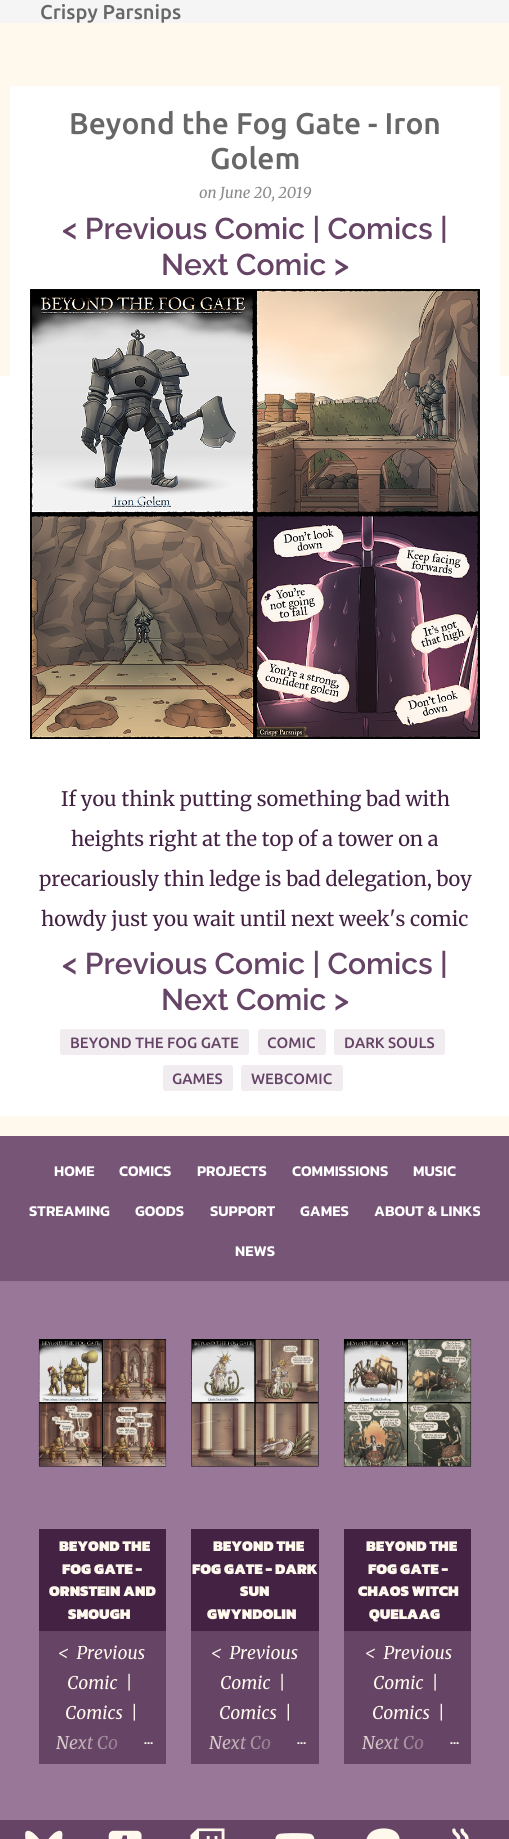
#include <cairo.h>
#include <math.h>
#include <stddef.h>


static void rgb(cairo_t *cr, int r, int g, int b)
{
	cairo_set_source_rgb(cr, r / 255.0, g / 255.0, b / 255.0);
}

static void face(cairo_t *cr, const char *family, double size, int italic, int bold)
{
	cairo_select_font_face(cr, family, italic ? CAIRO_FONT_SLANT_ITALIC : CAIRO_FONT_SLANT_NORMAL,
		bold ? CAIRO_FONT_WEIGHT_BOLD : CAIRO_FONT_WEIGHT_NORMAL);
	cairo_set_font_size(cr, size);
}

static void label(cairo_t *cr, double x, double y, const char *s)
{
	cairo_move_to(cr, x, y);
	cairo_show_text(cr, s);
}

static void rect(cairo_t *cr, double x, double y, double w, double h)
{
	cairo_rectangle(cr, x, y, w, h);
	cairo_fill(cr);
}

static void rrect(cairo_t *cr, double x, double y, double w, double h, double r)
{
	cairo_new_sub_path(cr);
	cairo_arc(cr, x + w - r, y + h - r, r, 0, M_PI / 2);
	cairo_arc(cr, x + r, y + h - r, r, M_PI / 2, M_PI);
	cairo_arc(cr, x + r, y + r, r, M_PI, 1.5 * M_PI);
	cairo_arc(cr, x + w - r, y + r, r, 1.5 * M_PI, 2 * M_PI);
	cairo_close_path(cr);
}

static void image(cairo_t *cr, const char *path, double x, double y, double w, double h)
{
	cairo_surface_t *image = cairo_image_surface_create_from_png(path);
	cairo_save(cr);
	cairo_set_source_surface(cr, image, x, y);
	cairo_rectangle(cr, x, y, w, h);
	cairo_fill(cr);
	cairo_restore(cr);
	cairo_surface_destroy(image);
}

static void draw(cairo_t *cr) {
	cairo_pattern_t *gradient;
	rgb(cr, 255, 249, 237);
	cairo_paint(cr);
	rgb(cr, 245, 245, 245);
	rect(cr, 0, 0, 509, 23);
	face(cr, "Ubuntu Medium", 20, 0, 0);
	rgb(cr, 103, 103, 103);
	label(cr, 40, 19, "Crispy Parsnips");
	rgb(cr, 255, 255, 255);
	rect(cr, 0, 376, 509, 740);
	rect(cr, 10, 86, 490, 290);
	face(cr, "Ubuntu Medium", 30, 0, 0);
	rgb(cr, 103, 103, 103);
	label(cr, 69, 134, "Beyond the Fog Gate - Iron");
	label(cr, 210, 169, "Golem");
	face(cr, "Merriweather", 15, 1, 0);
	rgb(cr, 138, 138, 138);
	label(cr, 199, 198, "on June 20, 2019");
	face(cr, "Raleway SemiBold", 30, 0, 0);
	rgb(cr, 102, 68, 102);
	label(cr, 62, 239, "< Previous Comic | Comics |");
	label(cr, 161, 275, "Next Comic >");
	image(cr, "image0.png", 30, 289, 450, 450);
	face(cr, "Merriweather Light", 20, 0, 0);
	rgb(cr, 68, 34, 68);
	label(cr, 61, 806, "If you think putting something bad with");
	label(cr, 71, 846, "heights right at the top of a tower on a");
	label(cr, 39, 886, "precariously thin ledge is bad delegation, boy");
	label(cr, 41, 926, "howdy just you wait until next week's comic");
	face(cr, "Raleway SemiBold", 30, 0, 0);
	rgb(cr, 102, 68, 102);
	label(cr, 62, 974, "< Previous Comic | Comics |");
	label(cr, 161, 1010, "Next Comic >");
	rgb(cr, 240, 236, 240);
	rrect(cr, 60, 1029, 189, 26, 2.5);
	cairo_fill(cr);
	face(cr, "Ubuntu Medium", 15, 0, 0);
	rgb(cr, 102, 68, 102);
	label(cr, 70, 1048, "BEYOND THE FOG GATE");
	rgb(cr, 240, 236, 240);
	rrect(cr, 258, 1029, 68, 26, 2.5);
	cairo_fill(cr);
	rgb(cr, 102, 68, 102);
	label(cr, 267, 1048, "COMIC");
	rgb(cr, 240, 236, 240);
	rrect(cr, 334, 1029, 111, 26, 2.5);
	cairo_fill(cr);
	rgb(cr, 102, 68, 102);
	label(cr, 344, 1048, "DARK SOULS");
	rgb(cr, 240, 236, 240);
	rrect(cr, 163, 1065, 70, 26, 2.5);
	cairo_fill(cr);
	rgb(cr, 102, 68, 102);
	label(cr, 172, 1084, "GAMES");
	rgb(cr, 240, 236, 240);
	rrect(cr, 241, 1065, 102, 26, 2.5);
	cairo_fill(cr);
	rgb(cr, 102, 68, 102);
	label(cr, 251, 1084, "WEBCOMIC");
	rgb(cr, 153, 119, 153);
	rect(cr, 0, 1282, 509, 538);
	rgb(cr, 119, 85, 119);
	rect(cr, 0, 1136, 509, 145);
	face(cr, "Kanit SemiBold", 15, 0, 0);
	rgb(cr, 255, 255, 255);
	label(cr, 54, 1176, "HOME");
	label(cr, 119, 1176, "COMICS");
	label(cr, 197, 1176, "PROJECTS");
	label(cr, 292, 1176, "COMMISSIONS");
	label(cr, 413, 1176, "MUSIC");
	label(cr, 29, 1216, "STREAMING");
	label(cr, 135, 1216, "GOODS");
	label(cr, 210, 1216, "SUPPORT");
	label(cr, 300, 1216, "GAMES");
	label(cr, 374, 1216, "ABOUT & LINKS");
	label(cr, 235, 1256, "NEWS");
	rgb(cr, 147, 117, 147);
	rect(cr, 0, 1281, 509, 1);
	image(cr, "image1.png", 38, 1339, 129, 128);
	rgb(cr, 68, 34, 68);
	rect(cr, 39, 1529, 127, 102);
	face(cr, "Kanit Black", 15, 0, 0);
	rgb(cr, 255, 249, 237);
	label(cr, 59, 1551, "BEYOND THE");
	label(cr, 62, 1574, "FOG GATE -");
	label(cr, 49, 1596, "ORNSTEIN AND");
	label(cr, 68, 1619, "SMOUGH");
	rgb(cr, 102, 68, 102);
	rect(cr, 39, 1631, 127, 133);
	face(cr, "Merriweather", 17.5, 1, 0);
	rgb(cr, 255, 249, 237);
	label(cr, 58, 1659, "<  Previous");
	label(cr, 67, 1689, "Comic  |");
	label(cr, 65, 1719, "Comics  |");
	label(cr, 56, 1749, "Next Co");
	gradient = cairo_pattern_create_linear(154, 1743, 34, 1743);
	cairo_pattern_add_color_stop_rgba(gradient, 0, 0.4, 0.267, 0.4, 1);
	cairo_pattern_add_color_stop_rgba(gradient, 1, 0.4, 0.267, 0.4, 0);
	cairo_set_source(cr, gradient);
	cairo_pattern_destroy(gradient);
	rect(cr, 56, 1735, 62, 15);
	face(cr, "Kanit SemiBold", 15, 0, 0);
	rgb(cr, 255, 249, 237);
	label(cr, 144, 1744, "…");
	image(cr, "image2.png", 191, 1339, 128, 128);
	rgb(cr, 68, 34, 68);
	rect(cr, 191, 1529, 128, 102);
	face(cr, "Kanit Black", 15, 0, 0);
	rgb(cr, 255, 249, 237);
	label(cr, 213, 1551, "BEYOND THE");
	label(cr, 192, 1574, "FOG GATE - DARK");
	label(cr, 240, 1596, "SUN");
	label(cr, 207, 1619, "GWYNDOLIN");
	rgb(cr, 102, 68, 102);
	rect(cr, 191, 1631, 128, 133);
	face(cr, "Merriweather", 17.5, 1, 0);
	rgb(cr, 255, 249, 237);
	label(cr, 211, 1659, "<  Previous");
	label(cr, 220, 1689, "Comic  |");
	label(cr, 219, 1719, "Comics  |");
	label(cr, 209, 1749, "Next Co");
	gradient = cairo_pattern_create_linear(306, 1743, 186, 1743);
	cairo_pattern_add_color_stop_rgba(gradient, 0, 0.4, 0.267, 0.4, 1);
	cairo_pattern_add_color_stop_rgba(gradient, 1, 0.4, 0.267, 0.4, 0);
	cairo_set_source(cr, gradient);
	cairo_pattern_destroy(gradient);
	rect(cr, 209, 1735, 62, 15);
	face(cr, "Kanit SemiBold", 15, 0, 0);
	rgb(cr, 255, 249, 237);
	label(cr, 297, 1744, "…");
	image(cr, "image3.png", 343, 1339, 129, 128);
	rgb(cr, 68, 34, 68);
	rect(cr, 344, 1529, 127, 102);
	face(cr, "Kanit Black", 15, 0, 0);
	rgb(cr, 255, 249, 237);
	label(cr, 366, 1551, "BEYOND THE");
	label(cr, 368, 1574, "FOG GATE -");
	label(cr, 358, 1596, "CHAOS WITCH");
	label(cr, 369, 1619, "QUELAAG");
	rgb(cr, 102, 68, 102);
	rect(cr, 344, 1631, 127, 133);
	face(cr, "Merriweather", 17.5, 1, 0);
	rgb(cr, 255, 249, 237);
	label(cr, 365, 1659, "<  Previous");
	label(cr, 373, 1689, "Comic  |");
	label(cr, 372, 1719, "Comics  |");
	label(cr, 362, 1749, "Next Co");
	gradient = cairo_pattern_create_linear(459, 1743, 339, 1743);
	cairo_pattern_add_color_stop_rgba(gradient, 0, 0.4, 0.267, 0.4, 1);
	cairo_pattern_add_color_stop_rgba(gradient, 1, 0.4, 0.267, 0.4, 0);
	cairo_set_source(cr, gradient);
	cairo_pattern_destroy(gradient);
	rect(cr, 362, 1735, 62, 15);
	face(cr, "Kanit SemiBold", 15, 0, 0);
	rgb(cr, 255, 249, 237);
	label(cr, 450, 1744, "…");
	rgb(cr, 102, 68, 102);
	rect(cr, 0, 1820, 509, 19);
	image(cr, "image4.png", 25, 1830, 38, 9);
	image(cr, "image5.png", 108, 1830, 34, 9);
	image(cr, "image6.png", 190, 1828, 35, 11);
	image(cr, "image7.png", 275, 1833, 40, 6);
	image(cr, "image8.png", 366, 1828, 34, 11);
	image(cr, "image9.png", 452, 1828, 17, 11);
}

int main(void) {
	cairo_surface_t *surface = cairo_image_surface_create(CAIRO_FORMAT_RGB24, 509, 1839);
	cairo_t *cr = cairo_create(surface);
	cairo_font_options_t *options = cairo_font_options_create();
	cairo_font_options_set_hint_metrics(options, CAIRO_HINT_METRICS_OFF);
	cairo_font_options_set_hint_style(options, CAIRO_HINT_STYLE_NONE);
	cairo_set_font_options(cr, options);
	cairo_set_miter_limit(cr, 4);
	draw(cr);
	cairo_surface_write_to_png(surface, "render.png");
	cairo_font_options_destroy(options);
	cairo_destroy(cr);
	cairo_surface_destroy(surface);
	return 0;
}
